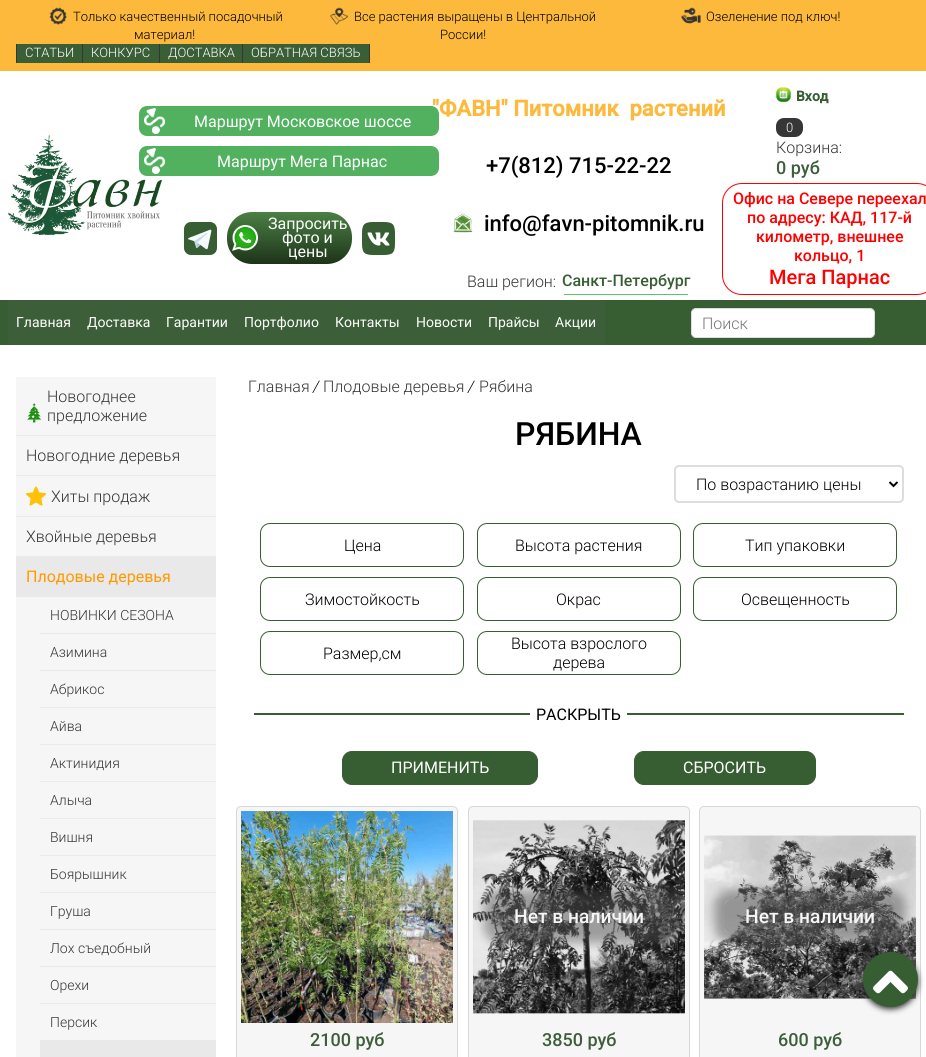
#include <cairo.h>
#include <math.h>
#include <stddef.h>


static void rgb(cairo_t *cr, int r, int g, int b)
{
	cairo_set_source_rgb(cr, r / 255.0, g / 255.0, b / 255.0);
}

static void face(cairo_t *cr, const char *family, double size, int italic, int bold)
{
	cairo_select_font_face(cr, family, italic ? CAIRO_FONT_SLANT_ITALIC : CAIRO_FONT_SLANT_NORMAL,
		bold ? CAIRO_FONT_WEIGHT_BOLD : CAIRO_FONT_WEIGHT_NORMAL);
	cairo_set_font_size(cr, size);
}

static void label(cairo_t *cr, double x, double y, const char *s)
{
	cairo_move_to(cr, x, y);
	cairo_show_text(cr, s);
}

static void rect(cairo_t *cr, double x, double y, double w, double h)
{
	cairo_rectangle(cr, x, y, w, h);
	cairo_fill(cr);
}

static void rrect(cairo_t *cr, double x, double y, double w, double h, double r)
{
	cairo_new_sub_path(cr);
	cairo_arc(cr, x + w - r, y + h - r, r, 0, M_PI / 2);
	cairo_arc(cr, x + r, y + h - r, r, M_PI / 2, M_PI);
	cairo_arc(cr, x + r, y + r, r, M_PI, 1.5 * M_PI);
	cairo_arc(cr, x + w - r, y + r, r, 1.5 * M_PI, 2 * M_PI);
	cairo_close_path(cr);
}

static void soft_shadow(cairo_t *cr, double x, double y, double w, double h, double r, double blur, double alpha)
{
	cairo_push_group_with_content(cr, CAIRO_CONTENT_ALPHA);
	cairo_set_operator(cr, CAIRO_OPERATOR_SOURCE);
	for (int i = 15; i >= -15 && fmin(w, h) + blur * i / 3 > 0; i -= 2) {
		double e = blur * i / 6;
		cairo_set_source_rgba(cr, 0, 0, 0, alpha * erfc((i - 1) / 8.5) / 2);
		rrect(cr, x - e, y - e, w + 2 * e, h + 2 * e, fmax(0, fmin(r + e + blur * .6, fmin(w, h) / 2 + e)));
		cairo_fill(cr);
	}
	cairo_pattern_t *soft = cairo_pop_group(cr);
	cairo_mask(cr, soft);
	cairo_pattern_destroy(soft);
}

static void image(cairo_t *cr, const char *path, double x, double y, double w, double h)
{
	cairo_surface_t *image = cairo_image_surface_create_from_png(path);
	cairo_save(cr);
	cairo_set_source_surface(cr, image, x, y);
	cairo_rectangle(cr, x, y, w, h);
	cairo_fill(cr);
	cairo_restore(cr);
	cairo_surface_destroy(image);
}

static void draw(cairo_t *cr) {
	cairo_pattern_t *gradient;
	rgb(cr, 255, 255, 255);
	cairo_paint(cr);
	rgb(cr, 253, 185, 59);
	rect(cr, 0, 0, 926, 71);
	image(cr, "image0.png", 49, 7, 18, 18);
	face(cr, "Roboto Light", 13, 0, 0);
	rgb(cr, 0, 0, 0);
	label(cr, 73, 21, "Только качественный посадочный");
	label(cr, 134, 39, "материал!");
	image(cr, "image1.png", 330, 7, 19, 18);
	label(cr, 354, 21, "Все растения выращены в Центральной");
	label(cr, 440, 39, "России!");
	image(cr, "image2.png", 681, 7, 20, 17);
	label(cr, 706, 21, "Озеленение под ключ!");
	rgb(cr, 54, 54, 54);
	rect(cr, 16, 44, 1, 19);
	rgb(cr, 58, 94, 53);
	rect(cr, 17, 44, 65, 19);
	rgb(cr, 255, 255, 255);
	label(cr, 25, 57, "СТАТЬИ");
	rgb(cr, 54, 54, 54);
	rect(cr, 82, 44, 1, 19);
	rgb(cr, 58, 94, 53);
	rect(cr, 83, 44, 76, 19);
	rgb(cr, 255, 255, 255);
	label(cr, 91, 57, "КОНКУРС");
	rgb(cr, 54, 54, 54);
	rect(cr, 159, 44, 1, 19);
	rgb(cr, 58, 94, 53);
	rect(cr, 160, 44, 82, 19);
	rgb(cr, 255, 255, 255);
	label(cr, 168, 57, "ДОСТАВКА");
	rgb(cr, 54, 54, 54);
	rect(cr, 369, 44, 1, 19);
	rect(cr, 242, 44, 1, 19);
	rgb(cr, 58, 94, 53);
	rect(cr, 243, 44, 126, 19);
	rgb(cr, 255, 255, 255);
	label(cr, 251, 57, "ОБРАТНАЯ СВЯЗЬ");
	image(cr, "image3.png", 8, 135, 154, 100);
	rgb(cr, 81, 177, 95);
	rrect(cr, 139, 106, 300, 30, 8);
	cairo_fill(cr);
	image(cr, "image4.png", 144, 108, 21, 26);
	face(cr, "Roboto", 16, 0, 0);
	rgb(cr, 255, 255, 255);
	label(cr, 194, 127, "Маршрут Московское шоссе");
	rgb(cr, 81, 177, 95);
	rrect(cr, 139, 146, 300, 30, 8);
	cairo_fill(cr);
	image(cr, "image4.png", 144, 148, 21, 26);
	rgb(cr, 255, 255, 255);
	label(cr, 217, 167, "Маршрут Мега Парнас");
	image(cr, "image5.png", 184, 222, 33, 33);
	gradient = cairo_pattern_create_linear(290, 264, 290, 212);
	cairo_pattern_add_color_stop_rgba(gradient, 0, 0.114, 0.2, 0.098, 1);
	cairo_pattern_add_color_stop_rgba(gradient, 1, 0.294, 0.502, 0.271, 1);
	cairo_set_source(cr, gradient);
	cairo_pattern_destroy(gradient);
	rrect(cr, 227, 212, 125, 52, 25);
	cairo_fill(cr);
	image(cr, "image6.png", 232, 225, 26, 26);
	rgb(cr, 255, 255, 255);
	label(cr, 268, 229, "Запросить");
	label(cr, 282, 243, "фото и");
	label(cr, 288, 257, "цены");
	image(cr, "image7.png", 362, 222, 33, 33);
	face(cr, "Roboto", 22, 0, 1);
	rgb(cr, 253, 185, 59);
	label(cr, 432, 116, "\"ФАВН\" Питомник  растений");
	face(cr, "Roboto Medium", 22, 0, 0);
	rgb(cr, 0, 0, 0);
	label(cr, 486, 173, "+7(812) 715-22-22");
	image(cr, "image8.png", 453, 213, 20, 20);
	label(cr, 484, 231, "info@favn-pitomnik.ru");
	face(cr, "Roboto Light", 16, 0, 0);
	rgb(cr, 54, 54, 54);
	label(cr, 467, 287, "Ваш регион:");
	rgb(cr, 95, 193, 109);
	rect(cr, 564, 294, 124, 1);
	face(cr, "Roboto Medium", 16, 0, 0);
	rgb(cr, 55, 94, 50);
	label(cr, 562, 286, "Санкт-Петербург");
	image(cr, "image9.png", 776, 87, 15, 15);
	face(cr, "Roboto", 14, 0, 1);
	label(cr, 796, 101, "Вход");
	rgb(cr, 54, 54, 54);
	rrect(cr, 776, 118, 27, 19, 8);
	cairo_fill(cr);
	face(cr, "Roboto Light", 13, 0, 0);
	rgb(cr, 255, 255, 255);
	label(cr, 786, 132, "0");
	face(cr, "Roboto Light", 16, 0, 0);
	rgb(cr, 54, 54, 54);
	label(cr, 776, 153, "Корзина:");
	face(cr, "Roboto Medium", 18, 0, 0);
	rgb(cr, 60, 94, 56);
	label(cr, 776, 174, "0 руб");
	rrect(cr, 722.5, 183.5, 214, 111, 19.5);
	rgb(cr, 255, 0, 0);
	cairo_set_line_width(cr, 1);
	cairo_stroke(cr);
	face(cr, "Roboto Medium", 16, 0, 0);
	label(cr, 733, 204, "Офис на Севере переехал");
	label(cr, 747, 223, "по адресу: КАД, 117-й");
	label(cr, 756, 242, "километр, внешнее");
	label(cr, 794, 261, "кольцо, 1");
	face(cr, "Roboto Medium", 20, 0, 0);
	label(cr, 769, 284, "Мега Парнас");
	rgb(cr, 55, 94, 50);
	rect(cr, 0, 300, 926, 45);
	rgb(cr, 60, 94, 56);
	rect(cr, 8, 300, 597, 45);
	face(cr, "Roboto", 14, 0, 0);
	rgb(cr, 255, 255, 255);
	label(cr, 16, 327, "Главная");
	label(cr, 87, 327, "Доставка");
	label(cr, 166, 327, "Гарантии");
	label(cr, 244, 327, "Портфолио");
	label(cr, 335, 327, "Контакты");
	label(cr, 416, 327, "Новости");
	label(cr, 488, 327, "Прайсы");
	label(cr, 555, 327, "Акции");
	rrect(cr, 691.5, 308.5, 183, 29, 4.5);
	cairo_fill_preserve(cr);
	rgb(cr, 221, 221, 221);
	cairo_stroke(cr);
	face(cr, "Roboto Light", 16, 0, 0);
	rgb(cr, 117, 117, 117);
	label(cr, 702, 329, "Поиск");
	rgb(cr, 246, 246, 246);
	rect(cr, 16, 377, 200, 680);
	rgb(cr, 234, 234, 234);
	rect(cr, 16, 435, 200, 1);
	rgb(cr, 54, 54, 54);
	label(cr, 47, 402, "Новогоднее");
	image(cr, "image10.png", 27, 403, 15, 20);
	label(cr, 47, 421, "предложение");
	rgb(cr, 234, 234, 234);
	rect(cr, 16, 475, 200, 1);
	rgb(cr, 54, 54, 54);
	label(cr, 26, 461, "Новогодние деревья");
	rgb(cr, 234, 234, 234);
	rect(cr, 16, 516, 200, 1);
	image(cr, "image11.png", 26, 486, 20, 20);
	rgb(cr, 54, 54, 54);
	label(cr, 51, 502, "Хиты продаж");
	rgb(cr, 234, 234, 234);
	rect(cr, 16, 556, 200, 1);
	rgb(cr, 54, 54, 54);
	label(cr, 26, 542, "Хвойные деревья");
	rgb(cr, 233, 233, 233);
	rect(cr, 16, 557, 200, 40);
	face(cr, "Roboto", 16, 0, 0);
	rgb(cr, 255, 153, 0);
	label(cr, 26, 582, "Плодовые деревья");
	rgb(cr, 234, 234, 234);
	rect(cr, 40, 633, 176, 1);
	face(cr, "Roboto Light", 14, 0, 0);
	rgb(cr, 54, 54, 54);
	label(cr, 50, 620, "НОВИНКИ СЕЗОНА");
	rgb(cr, 234, 234, 234);
	rect(cr, 40, 670, 176, 1);
	rgb(cr, 54, 54, 54);
	label(cr, 50, 657, "Азимина");
	rgb(cr, 234, 234, 234);
	rect(cr, 40, 707, 176, 1);
	rgb(cr, 54, 54, 54);
	label(cr, 50, 694, "Абрикос");
	rgb(cr, 234, 234, 234);
	rect(cr, 40, 744, 176, 1);
	rgb(cr, 54, 54, 54);
	label(cr, 50, 731, "Айва");
	rgb(cr, 234, 234, 234);
	rect(cr, 40, 781, 176, 1);
	rgb(cr, 54, 54, 54);
	label(cr, 50, 768, "Актинидия");
	rgb(cr, 234, 234, 234);
	rect(cr, 40, 818, 176, 1);
	rgb(cr, 54, 54, 54);
	label(cr, 50, 805, "Алыча");
	rgb(cr, 234, 234, 234);
	rect(cr, 40, 855, 176, 1);
	rgb(cr, 54, 54, 54);
	label(cr, 50, 842, "Вишня");
	rgb(cr, 234, 234, 234);
	rect(cr, 40, 892, 176, 1);
	rgb(cr, 54, 54, 54);
	label(cr, 50, 879, "Боярышник");
	rgb(cr, 234, 234, 234);
	rect(cr, 40, 929, 176, 1);
	rgb(cr, 54, 54, 54);
	label(cr, 50, 916, "Груша");
	rgb(cr, 234, 234, 234);
	rect(cr, 40, 966, 176, 1);
	rgb(cr, 54, 54, 54);
	label(cr, 50, 953, "Лох съедобный");
	rgb(cr, 234, 234, 234);
	rect(cr, 40, 1003, 176, 1);
	rgb(cr, 54, 54, 54);
	label(cr, 50, 990, "Орехи");
	rgb(cr, 234, 234, 234);
	rect(cr, 40, 1040, 176, 1);
	rgb(cr, 54, 54, 54);
	label(cr, 50, 1027, "Персик");
	rgb(cr, 233, 233, 233);
	rect(cr, 40, 1041, 176, 16);
	face(cr, "Roboto Light", 16, 0, 0);
	rgb(cr, 54, 54, 54);
	label(cr, 248, 392, "Главная");
	face(cr, "Roboto Light", 16, 1, 0);
	rgb(cr, 0, 0, 0);
	label(cr, 313, 392, "/");
	face(cr, "Roboto Light", 16, 0, 0);
	rgb(cr, 54, 54, 54);
	label(cr, 323, 392, "Плодовые деревья");
	face(cr, "Roboto Light", 16, 1, 0);
	rgb(cr, 0, 0, 0);
	label(cr, 468, 392, "/");
	face(cr, "Roboto Light", 16, 0, 0);
	rgb(cr, 54, 54, 54);
	label(cr, 479, 392, "Рябина");
	face(cr, "Roboto Medium", 32, 0, 0);
	rgb(cr, 0, 0, 0);
	label(cr, 515, 445, "РЯБИНА");
	rrect(cr, 675, 466, 228, 36, 4);
	rgb(cr, 221, 221, 221);
	cairo_set_line_width(cr, 2);
	cairo_stroke(cr);
	cairo_new_path(cr);
	cairo_move_to(cr, 889.5, 482);
	cairo_line_to(cr, 893.5, 486);
	cairo_line_to(cr, 897.5, 482);
	rgb(cr, 0, 0, 0);
	cairo_stroke(cr);
	face(cr, "Roboto Light", 16, 0, 0);
	label(cr, 696, 490, "По возрастанию цены");
	rrect(cr, 260.5, 523.5, 203, 43, 9.5);
	rgb(cr, 55, 94, 50);
	cairo_set_line_width(cr, 1);
	cairo_stroke(cr);
	rgb(cr, 0, 0, 0);
	label(cr, 344, 551, "Цена");
	rrect(cr, 477.5, 523.5, 203, 43, 9.5);
	rgb(cr, 55, 94, 50);
	cairo_stroke(cr);
	rgb(cr, 0, 0, 0);
	label(cr, 515, 551, "Высота растения");
	rrect(cr, 693.5, 523.5, 203, 43, 9.5);
	rgb(cr, 55, 94, 50);
	cairo_stroke(cr);
	rgb(cr, 0, 0, 0);
	label(cr, 745, 551, "Тип упаковки");
	rrect(cr, 260.5, 577.5, 203, 43, 9.5);
	rgb(cr, 55, 94, 50);
	cairo_stroke(cr);
	rgb(cr, 0, 0, 0);
	label(cr, 305, 605, "Зимостойкость");
	rrect(cr, 477.5, 577.5, 203, 43, 9.5);
	rgb(cr, 55, 94, 50);
	cairo_stroke(cr);
	rgb(cr, 0, 0, 0);
	label(cr, 556, 605, "Окрас");
	rrect(cr, 693.5, 577.5, 203, 43, 9.5);
	rgb(cr, 55, 94, 50);
	cairo_stroke(cr);
	rgb(cr, 0, 0, 0);
	label(cr, 741, 605, "Освещенность");
	rrect(cr, 260.5, 631.5, 203, 43, 9.5);
	rgb(cr, 55, 94, 50);
	cairo_stroke(cr);
	rgb(cr, 0, 0, 0);
	label(cr, 323, 659, "Размер,см");
	rrect(cr, 477.5, 631.5, 203, 43, 9.5);
	rgb(cr, 55, 94, 50);
	cairo_stroke(cr);
	rgb(cr, 0, 0, 0);
	label(cr, 511, 649, "Высота взрослого");
	label(cr, 553, 668, "дерева");
	rgb(cr, 55, 94, 50);
	rect(cr, 254, 713, 276, 2);
	face(cr, "Roboto", 16, 0, 0);
	rgb(cr, 0, 0, 0);
	label(cr, 536, 720, "РАСКРЫТЬ");
	rgb(cr, 55, 94, 50);
	rect(cr, 627, 713, 277, 2);
	rrect(cr, 342.5, 751.5, 195, 33, 9.5);
	cairo_fill_preserve(cr);
	cairo_stroke(cr);
	rgb(cr, 255, 255, 255);
	label(cr, 391, 773, "ПРИМЕНИТЬ");
	rgb(cr, 55, 94, 50);
	rrect(cr, 634.5, 751.5, 181, 33, 9.5);
	cairo_fill_preserve(cr);
	cairo_stroke(cr);
	rgb(cr, 255, 255, 255);
	label(cr, 683, 773, "СБРОСИТЬ");
	rgb(cr, 246, 246, 246);
	rrect(cr, 236.5, 806.5, 221, 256, 4.5);
	cairo_fill_preserve(cr);
	rgb(cr, 217, 215, 215);
	cairo_stroke(cr);
	image(cr, "image12.png", 241, 811, 212, 212);
	face(cr, "Roboto Medium", 18, 0, 0);
	rgb(cr, 60, 94, 56);
	label(cr, 310, 1046, "2100 руб");
	rgb(cr, 246, 246, 246);
	rrect(cr, 468.5, 806.5, 221, 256, 4.5);
	cairo_fill_preserve(cr);
	rgb(cr, 217, 215, 215);
	cairo_stroke(cr);
	image(cr, "image13.png", 473, 820, 212, 194);
	cairo_save(cr);
	cairo_set_fill_rule(cr, CAIRO_FILL_RULE_EVEN_ODD);
	cairo_new_path(cr);
	cairo_move_to(cr, 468, 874);
	cairo_line_to(cr, 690, 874);
	cairo_line_to(cr, 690, 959);
	cairo_line_to(cr, 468, 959);
	cairo_close_path(cr);
	cairo_move_to(cr, 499, 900);
	cairo_line_to(cr, 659, 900);
	cairo_curve_to(cr, 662, 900, 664, 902, 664, 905);
	cairo_line_to(cr, 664, 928);
	cairo_curve_to(cr, 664, 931, 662, 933, 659, 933);
	cairo_line_to(cr, 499, 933);
	cairo_curve_to(cr, 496, 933, 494, 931, 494, 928);
	cairo_line_to(cr, 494, 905);
	cairo_curve_to(cr, 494, 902, 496, 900, 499, 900);
	cairo_close_path(cr);
	cairo_clip(cr);
	rgb(cr, 83, 83, 83);
	soft_shadow(cr, 484, 890, 190, 53, 15, 5, 0.5);
	cairo_restore(cr);
	cairo_set_source_rgba(cr, 0.325, 0.325, 0.325, 0.5);
	rrect(cr, 494, 900, 170, 33, 5);
	cairo_fill(cr);
	face(cr, "Roboto Medium", 19.25, 0, 0);
	rgb(cr, 246, 246, 246);
	label(cr, 514, 923, "Нет в наличии");
	face(cr, "Roboto Medium", 18, 0, 0);
	rgb(cr, 60, 94, 56);
	label(cr, 542, 1046, "3850 руб");
	rgb(cr, 246, 246, 246);
	rrect(cr, 699.5, 806.5, 221, 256, 4.5);
	cairo_fill_preserve(cr);
	rgb(cr, 217, 215, 215);
	cairo_stroke(cr);
	image(cr, "image14.png", 704, 835, 212, 164);
	cairo_save(cr);
	cairo_set_fill_rule(cr, CAIRO_FILL_RULE_EVEN_ODD);
	cairo_new_path(cr);
	cairo_move_to(cr, 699, 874);
	cairo_line_to(cr, 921, 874);
	cairo_line_to(cr, 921, 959);
	cairo_line_to(cr, 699, 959);
	cairo_close_path(cr);
	cairo_move_to(cr, 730, 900);
	cairo_line_to(cr, 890, 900);
	cairo_curve_to(cr, 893, 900, 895, 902, 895, 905);
	cairo_line_to(cr, 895, 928);
	cairo_curve_to(cr, 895, 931, 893, 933, 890, 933);
	cairo_line_to(cr, 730, 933);
	cairo_curve_to(cr, 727, 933, 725, 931, 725, 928);
	cairo_line_to(cr, 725, 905);
	cairo_curve_to(cr, 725, 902, 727, 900, 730, 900);
	cairo_close_path(cr);
	cairo_clip(cr);
	rgb(cr, 83, 83, 83);
	soft_shadow(cr, 715, 890, 190, 53, 15, 5, 0.5);
	cairo_restore(cr);
	cairo_set_source_rgba(cr, 0.325, 0.325, 0.325, 0.5);
	rrect(cr, 725, 900, 170, 33, 5);
	cairo_fill(cr);
	face(cr, "Roboto Medium", 19.25, 0, 0);
	rgb(cr, 246, 246, 246);
	label(cr, 745, 923, "Нет в наличии");
	face(cr, "Roboto Medium", 18, 0, 0);
	rgb(cr, 60, 94, 56);
	label(cr, 778, 1046, "600 руб");
	rgb(cr, 51, 51, 51);
	soft_shadow(cr, 863, 954, 55, 55, 27.5, 3, 1);
	rgb(cr, 55, 94, 50);
	cairo_arc(cr, 890.5, 979.5, 26.5, 0, 2 * M_PI);
	cairo_fill_preserve(cr);
	cairo_set_line_width(cr, 2);
	cairo_stroke(cr);
	image(cr, "image15.png", 873, 970, 35, 24);
}

int main(void) {
	cairo_surface_t *surface = cairo_image_surface_create(CAIRO_FORMAT_RGB24, 926, 1057);
	cairo_t *cr = cairo_create(surface);
	cairo_font_options_t *options = cairo_font_options_create();
	cairo_font_options_set_hint_metrics(options, CAIRO_HINT_METRICS_OFF);
	cairo_font_options_set_hint_style(options, CAIRO_HINT_STYLE_NONE);
	cairo_set_font_options(cr, options);
	cairo_set_miter_limit(cr, 4);
	draw(cr);
	cairo_surface_write_to_png(surface, "render.png");
	cairo_font_options_destroy(options);
	cairo_destroy(cr);
	cairo_surface_destroy(surface);
	return 0;
}
